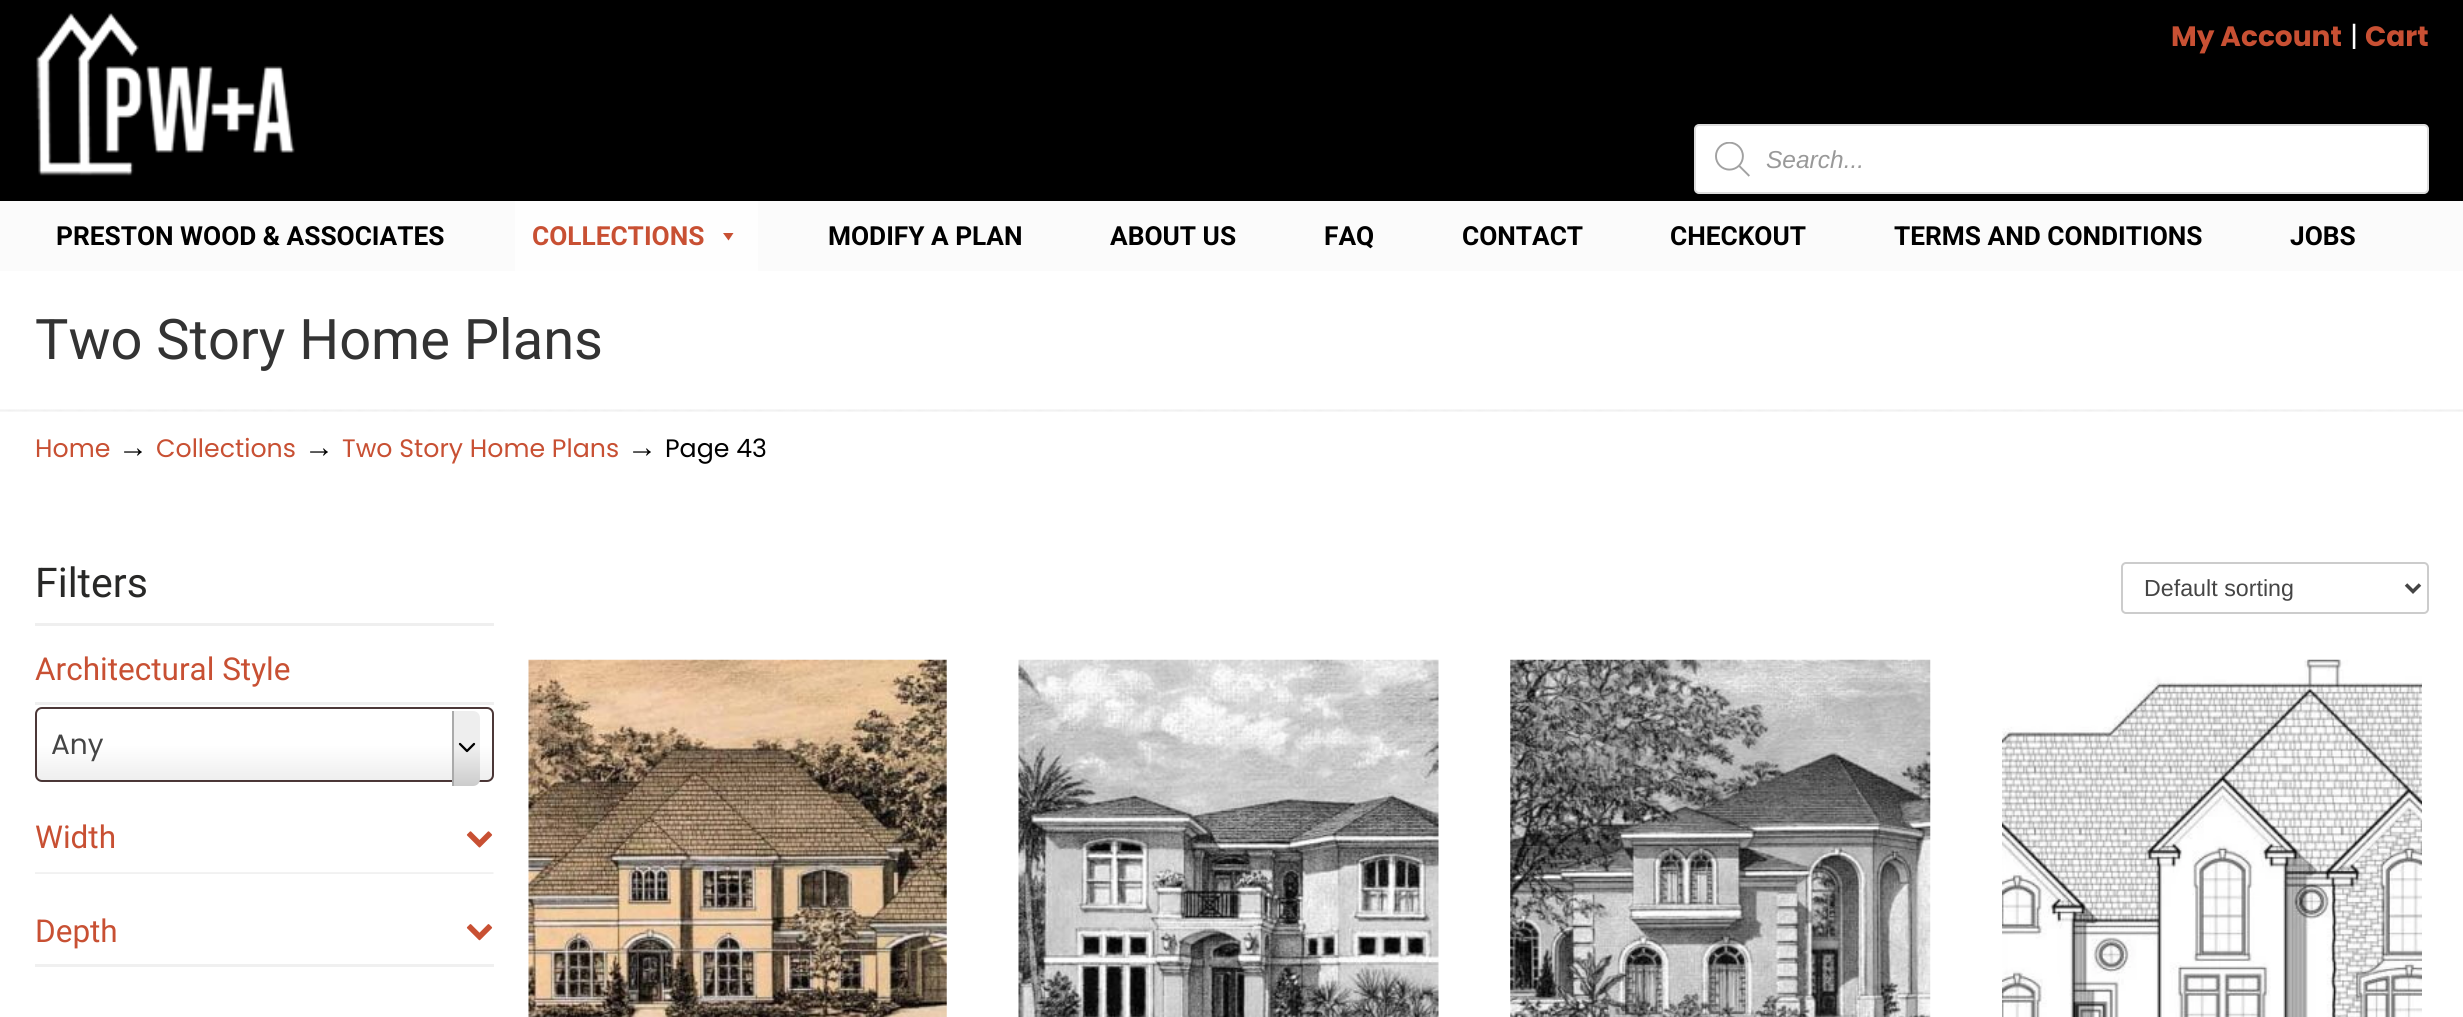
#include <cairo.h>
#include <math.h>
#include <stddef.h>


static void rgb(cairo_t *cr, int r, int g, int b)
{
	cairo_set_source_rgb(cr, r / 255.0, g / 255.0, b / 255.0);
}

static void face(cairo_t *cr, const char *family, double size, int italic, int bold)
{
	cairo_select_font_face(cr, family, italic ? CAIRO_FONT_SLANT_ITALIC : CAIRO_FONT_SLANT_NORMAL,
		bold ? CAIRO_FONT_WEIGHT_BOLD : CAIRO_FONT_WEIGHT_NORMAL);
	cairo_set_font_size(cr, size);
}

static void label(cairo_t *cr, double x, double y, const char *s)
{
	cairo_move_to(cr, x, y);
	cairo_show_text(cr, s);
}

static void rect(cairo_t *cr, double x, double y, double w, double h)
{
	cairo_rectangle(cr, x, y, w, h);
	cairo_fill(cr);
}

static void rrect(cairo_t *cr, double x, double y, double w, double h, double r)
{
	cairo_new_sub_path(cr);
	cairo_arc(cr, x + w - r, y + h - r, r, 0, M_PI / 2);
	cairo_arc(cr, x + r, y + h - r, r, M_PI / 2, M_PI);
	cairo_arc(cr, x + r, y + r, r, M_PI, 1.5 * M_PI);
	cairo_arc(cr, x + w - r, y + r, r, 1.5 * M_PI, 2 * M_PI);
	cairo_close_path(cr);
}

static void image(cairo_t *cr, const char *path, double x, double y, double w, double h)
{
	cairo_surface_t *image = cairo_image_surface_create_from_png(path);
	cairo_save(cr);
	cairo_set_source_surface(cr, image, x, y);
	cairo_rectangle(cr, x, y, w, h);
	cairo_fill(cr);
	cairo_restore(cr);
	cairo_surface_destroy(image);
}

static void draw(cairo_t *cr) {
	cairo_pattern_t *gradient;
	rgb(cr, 255, 255, 255);
	cairo_paint(cr);
	rgb(cr, 0, 0, 0);
	rect(cr, 0, 0, 2463, 201);
	image(cr, "image0.png", 36, 13, 259, 163);
	face(cr, "Poppins", 28, 0, 1);
	rgb(cr, 200, 80, 51);
	label(cr, 2171, 46, "My Account");
	face(cr, "Poppins", 28, 0, 0);
	rgb(cr, 255, 255, 255);
	label(cr, 2350, 46, "|");
	face(cr, "Poppins", 28, 0, 1);
	rgb(cr, 200, 80, 51);
	label(cr, 2365, 46, "Cart");
	rgb(cr, 255, 255, 255);
	rrect(cr, 1695, 125, 733, 68, 4);
	cairo_fill_preserve(cr);
	rgb(cr, 221, 221, 221);
	cairo_stroke(cr);
	image(cr, "image1.png", 1715, 142, 35, 35);
	face(cr, "Liberation Sans", 24.5, 1, 0);
	rgb(cr, 153, 153, 153);
	label(cr, 1766, 168, "Search...");
	rgb(cr, 251, 251, 251);
	rect(cr, 0, 201, 2463, 70);
	face(cr, "Roboto", 26.25, 0, 1);
	rgb(cr, 0, 0, 0);
	label(cr, 56, 245, "PRESTON WOOD & ASSOCIATES");
	rgb(cr, 254, 254, 254);
	rect(cr, 515, 201, 243, 70);
	rgb(cr, 200, 80, 51);
	label(cr, 532, 245, "COLLECTIONS");
	cairo_new_path(cr);
	cairo_move_to(cr, 733.5, 233);
	cairo_line_to(cr, 728.5, 240.5);
	cairo_line_to(cr, 723, 233);
	cairo_close_path(cr);
	cairo_fill(cr);
	rgb(cr, 0, 0, 0);
	label(cr, 828, 245, "MODIFY A PLAN");
	label(cr, 1110, 245, "ABOUT US");
	label(cr, 1324, 245, "FAQ");
	label(cr, 1462, 245, "CONTACT");
	label(cr, 1670, 245, "CHECKOUT");
	label(cr, 1894, 245, "TERMS AND CONDITIONS");
	label(cr, 2290, 245, "JOBS");
	face(cr, "Roboto", 56, 0, 0);
	rgb(cr, 51, 51, 51);
	label(cr, 35, 359, "Two Story Home Plans");
	image(cr, "image2.png", 0, 409, 2463, 3);
	face(cr, "Poppins", 25.25, 0, 0);
	rgb(cr, 200, 80, 51);
	label(cr, 35, 457, "Home");
	face(cr, "Liberation Serif", 30, 0, 0);
	rgb(cr, 0, 0, 0);
	label(cr, 118, 457, "→");
	face(cr, "Poppins", 25.25, 0, 0);
	rgb(cr, 200, 80, 51);
	label(cr, 156, 457, "Collections");
	face(cr, "Liberation Serif", 30, 0, 0);
	rgb(cr, 0, 0, 0);
	label(cr, 304, 457, "→");
	face(cr, "Poppins", 25.25, 0, 0);
	rgb(cr, 200, 80, 51);
	label(cr, 342, 457, "Two Story Home Plans");
	face(cr, "Liberation Serif", 30, 0, 0);
	rgb(cr, 0, 0, 0);
	label(cr, 627, 457, "→");
	face(cr, "Poppins", 25.25, 0, 0);
	label(cr, 665, 457, "Page 43");
	rgb(cr, 239, 239, 239);
	rect(cr, 35, 623, 459, 3);
	face(cr, "Roboto", 41, 0, 0);
	rgb(cr, 40, 40, 39);
	label(cr, 35, 597, "Filters");
	rgb(cr, 239, 239, 239);
	rect(cr, 35, 702, 459, 3);
	face(cr, "Roboto", 31.5, 0, 0);
	rgb(cr, 200, 80, 51);
	label(cr, 35, 680, "Architectural Style");
	cairo_save(cr);
	rrect(cr, 35, 707, 459, 75, 7);
	cairo_clip(cr);
	gradient = cairo_pattern_create_linear(264, 709, 264, 781);
	cairo_pattern_add_color_stop_rgba(gradient, 0.5, 1, 1, 1, 1);
	cairo_pattern_add_color_stop_rgba(gradient, 1, 0.933, 0.933, 0.933, 1);
	cairo_set_source(cr, gradient);
	cairo_pattern_destroy(gradient);
	rect(cr, 35, 709, 459, 72);
	cairo_restore(cr);
	rrect(cr, 36, 708, 457, 73, 6);
	cairo_set_source_rgba(cr, 0.125, 0.027, 0.027, 0.8);
	cairo_stroke(cr);
	face(cr, "Poppins", 28, 0, 0);
	rgb(cr, 69, 69, 69);
	label(cr, 51, 754, "Any");
	gradient = cairo_pattern_create_linear(466, 711, 466, 786);
	cairo_pattern_add_color_stop_rgba(gradient, 0.5, 0.933, 0.933, 0.933, 1);
	cairo_pattern_add_color_stop_rgba(gradient, 1, 0.8, 0.8, 0.8, 1);
	cairo_set_source(cr, gradient);
	cairo_pattern_destroy(gradient);
	cairo_new_path(cr);
	cairo_move_to(cr, 452, 711);
	cairo_line_to(cr, 473, 711);
	cairo_curve_to(cr, 477, 711, 480, 714, 480, 718);
	cairo_line_to(cr, 480, 779);
	cairo_curve_to(cr, 480, 783, 477, 786, 473, 786);
	cairo_line_to(cr, 452, 786);
	cairo_close_path(cr);
	cairo_fill(cr);
	rgb(cr, 170, 170, 170);
	rect(cr, 452, 711, 2, 75);
	cairo_new_path(cr);
	cairo_move_to(cr, 460, 744);
	cairo_line_to(cr, 467, 751);
	cairo_line_to(cr, 474, 744);
	rgb(cr, 0, 0, 0);
	cairo_set_line_width(cr, 2.3);
	cairo_set_line_cap(cr, CAIRO_LINE_CAP_ROUND);
	cairo_set_line_join(cr, CAIRO_LINE_JOIN_ROUND);
	cairo_stroke(cr);
	image(cr, "image3.png", 35, 872, 459, 2);
	face(cr, "Roboto", 31.5, 0, 0);
	rgb(cr, 200, 80, 51);
	label(cr, 35, 848, "Width");
	image(cr, "image4.png", 466, 831, 27, 17);
	rgb(cr, 240, 240, 240);
	rect(cr, 35, 964, 459, 3);
	rgb(cr, 200, 80, 51);
	label(cr, 35, 942, "Depth");
	image(cr, "image5.png", 466, 924, 27, 17);
	rrect(cr, 2122, 563, 306, 50, 4);
	rgb(cr, 204, 204, 204);
	cairo_set_line_width(cr, 2);
	cairo_set_line_cap(cr, CAIRO_LINE_CAP_BUTT);
	cairo_set_line_join(cr, CAIRO_LINE_JOIN_MITER);
	cairo_stroke(cr);
	cairo_new_path(cr);
	cairo_move_to(cr, 2406, 584.5);
	cairo_line_to(cr, 2413, 591.5);
	cairo_line_to(cr, 2420, 584.5);
	rgb(cr, 69, 69, 69);
	cairo_set_line_width(cr, 3.5);
	cairo_stroke(cr);
	face(cr, "Liberation Sans", 23.25, 0, 0);
	label(cr, 2144, 596, "Default sorting");
	image(cr, "image6.png", 528, 659, 419, 358);
	image(cr, "image7.png", 1018, 659, 421, 358);
	image(cr, "image8.png", 1510, 659, 421, 358);
	image(cr, "image9.png", 2002, 659, 420, 358);
}

int main(void) {
	cairo_surface_t *surface = cairo_image_surface_create(CAIRO_FORMAT_RGB24, 2463, 1017);
	cairo_t *cr = cairo_create(surface);
	cairo_font_options_t *options = cairo_font_options_create();
	cairo_font_options_set_hint_metrics(options, CAIRO_HINT_METRICS_OFF);
	cairo_font_options_set_hint_style(options, CAIRO_HINT_STYLE_NONE);
	cairo_set_font_options(cr, options);
	cairo_set_miter_limit(cr, 4);
	draw(cr);
	cairo_surface_write_to_png(surface, "render.png");
	cairo_font_options_destroy(options);
	cairo_destroy(cr);
	cairo_surface_destroy(surface);
	return 0;
}
